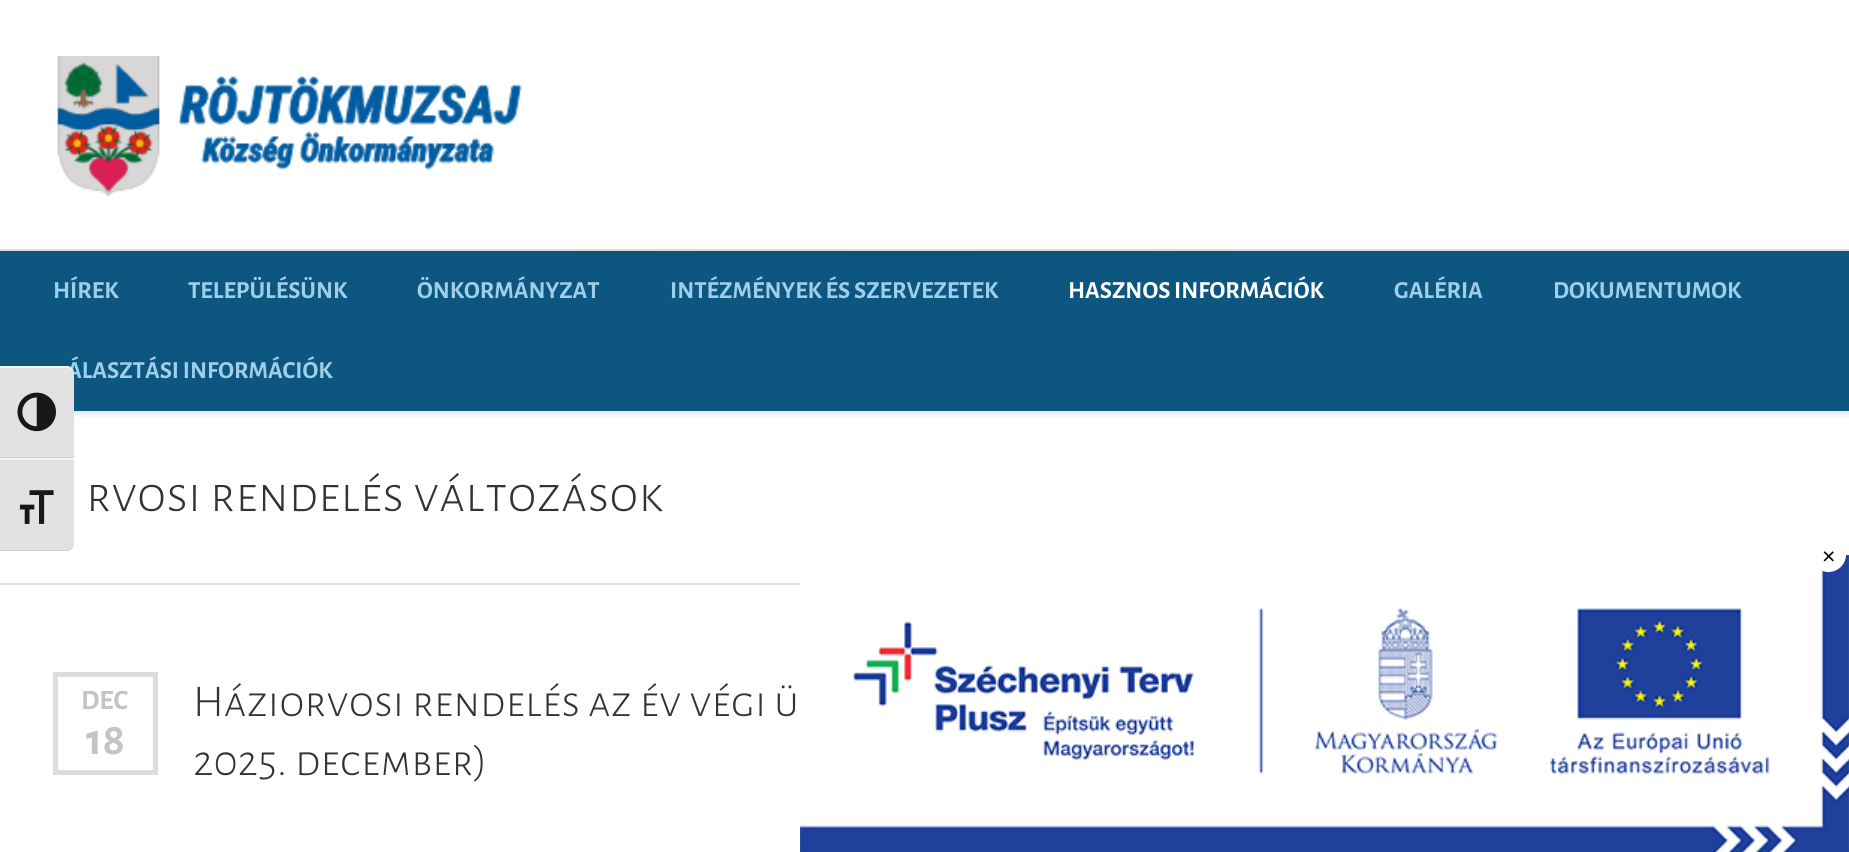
#include <cairo.h>
#include <math.h>
#include <stddef.h>


static void rgb(cairo_t *cr, int r, int g, int b)
{
	cairo_set_source_rgb(cr, r / 255.0, g / 255.0, b / 255.0);
}

static void face(cairo_t *cr, const char *family, double size, int italic, int bold)
{
	cairo_select_font_face(cr, family, italic ? CAIRO_FONT_SLANT_ITALIC : CAIRO_FONT_SLANT_NORMAL,
		bold ? CAIRO_FONT_WEIGHT_BOLD : CAIRO_FONT_WEIGHT_NORMAL);
	cairo_set_font_size(cr, size);
}

static void label(cairo_t *cr, double x, double y, const char *s)
{
	cairo_move_to(cr, x, y);
	cairo_show_text(cr, s);
}

static void rect(cairo_t *cr, double x, double y, double w, double h)
{
	cairo_rectangle(cr, x, y, w, h);
	cairo_fill(cr);
}

static void image(cairo_t *cr, const char *path, double x, double y, double w, double h)
{
	cairo_surface_t *image = cairo_image_surface_create_from_png(path);
	cairo_save(cr);
	cairo_set_source_surface(cr, image, x, y);
	cairo_rectangle(cr, x, y, w, h);
	cairo_fill(cr);
	cairo_restore(cr);
	cairo_surface_destroy(image);
}

static void draw(cairo_t *cr) {
	rgb(cr, 255, 255, 255);
	cairo_paint(cr);
	rgb(cr, 13, 86, 127);
	rect(cr, 0, 251, 1849, 160);
	face(cr, "Alegreya Sans SC", 24.5, 0, 1);
	rgb(cr, 158, 207, 234);
	label(cr, 67, 378, "ÁLASZTÁSI INFORMÁCIÓK");
	rgb(cr, 226, 226, 226);
	cairo_new_path(cr);
	cairo_move_to(cr, 0, 366);
	cairo_line_to(cr, 67, 366);
	cairo_curve_to(cr, 71, 366, 74, 369, 74, 373);
	cairo_line_to(cr, 74, 459);
	cairo_line_to(cr, 0, 459);
	cairo_close_path(cr);
	cairo_fill(cr);
	rgb(cr, 245, 245, 245);
	cairo_new_path(cr);
	cairo_move_to(cr, 0, 368);
	cairo_line_to(cr, 66, 368);
	cairo_curve_to(cr, 69, 368, 72, 369, 74, 371);
	cairo_curve_to(cr, 72, 368, 69, 366, 66, 366);
	cairo_line_to(cr, 0, 366);
	cairo_close_path(cr);
	cairo_fill(cr);
	rgb(cr, 210, 210, 210);
	rect(cr, 0, 457, 74, 1);
	image(cr, "image0.png", 17, 392, 39, 40);
	rgb(cr, 226, 226, 226);
	cairo_new_path(cr);
	cairo_move_to(cr, 0, 459);
	cairo_line_to(cr, 74, 459);
	cairo_line_to(cr, 74, 544);
	cairo_curve_to(cr, 74, 548, 71, 551, 67, 551);
	cairo_line_to(cr, 0, 551);
	cairo_close_path(cr);
	cairo_fill(cr);
	rgb(cr, 245, 245, 245);
	rect(cr, 0, 458, 74, 2);
	rgb(cr, 210, 210, 210);
	cairo_new_path(cr);
	cairo_move_to(cr, 0, 550);
	cairo_line_to(cr, 0, 551);
	cairo_line_to(cr, 66, 551);
	cairo_curve_to(cr, 69, 551, 72, 549, 74, 546);
	cairo_curve_to(cr, 72, 548, 69, 550, 66, 550);
	cairo_close_path(cr);
	cairo_fill(cr);
	image(cr, "image1.png", 19, 490, 35, 34);
	image(cr, "image2.png", 57, 56, 465, 140);
	image(cr, "image3.png", 576, 251, 661, 5);
	rgb(cr, 221, 221, 221);
	rect(cr, 0, 249, 1849, 2);
	rgb(cr, 158, 207, 234);
	label(cr, 53, 298, "HÍREK");
	label(cr, 188, 298, "TELEPÜLÉSÜNK");
	label(cr, 417, 298, "ÖNKORMÁNYZAT");
	label(cr, 670, 298, "INTÉZMÉNYEK ÉS SZERVEZETEK");
	rgb(cr, 255, 255, 255);
	label(cr, 1068, 298, "HASZNOS INFORMÁCIÓK");
	rgb(cr, 158, 207, 234);
	label(cr, 1394, 298, "GALÉRIA");
	label(cr, 1553, 298, "DOKUMENTUMOK");
	image(cr, "image4.png", 74, 411, 1775, 6);
	rgb(cr, 221, 221, 221);
	rect(cr, 0, 583, 1849, 2);
	face(cr, "Alegreya Sans SC Light", 52.5, 0, 0);
	rgb(cr, 51, 51, 51);
	label(cr, 86, 511, "rvosi rendelés változások");
	cairo_rectangle(cr, 55.5, 674.5, 100, 98);
	rgb(cr, 221, 221, 221);
	cairo_set_line_width(cr, 5);
	cairo_stroke(cr);
	face(cr, "Alegreya Sans SC", 28, 0, 1);
	rgb(cr, 196, 196, 196);
	label(cr, 81, 709, "DEC");
	face(cr, "Alegreya Sans SC", 45.5, 0, 1);
	label(cr, 86, 754, "18");
	face(cr, "Alegreya Sans SC Light", 45.5, 0, 0);
	rgb(cr, 51, 51, 51);
	label(cr, 193, 716, "Háziorvosi rendelés az év végi ü");
	label(cr, 193, 775, "2025. december)");
	image(cr, "image5.png", 800, 555, 1049, 297);
	rgb(cr, 255, 255, 255);
	cairo_arc(cr, 1828.5, 554.5, 17.5, 0, 2 * M_PI);
	cairo_fill(cr);
	face(cr, "Liberation Sans", 23, 0, 0);
	rgb(cr, 0, 0, 0);
	label(cr, 1822, 564, "×");
}

int main(void) {
	cairo_surface_t *surface = cairo_image_surface_create(CAIRO_FORMAT_RGB24, 1849, 852);
	cairo_t *cr = cairo_create(surface);
	cairo_font_options_t *options = cairo_font_options_create();
	cairo_font_options_set_hint_metrics(options, CAIRO_HINT_METRICS_OFF);
	cairo_font_options_set_hint_style(options, CAIRO_HINT_STYLE_NONE);
	cairo_set_font_options(cr, options);
	cairo_set_miter_limit(cr, 4);
	draw(cr);
	cairo_surface_write_to_png(surface, "render.png");
	cairo_font_options_destroy(options);
	cairo_destroy(cr);
	cairo_surface_destroy(surface);
	return 0;
}
